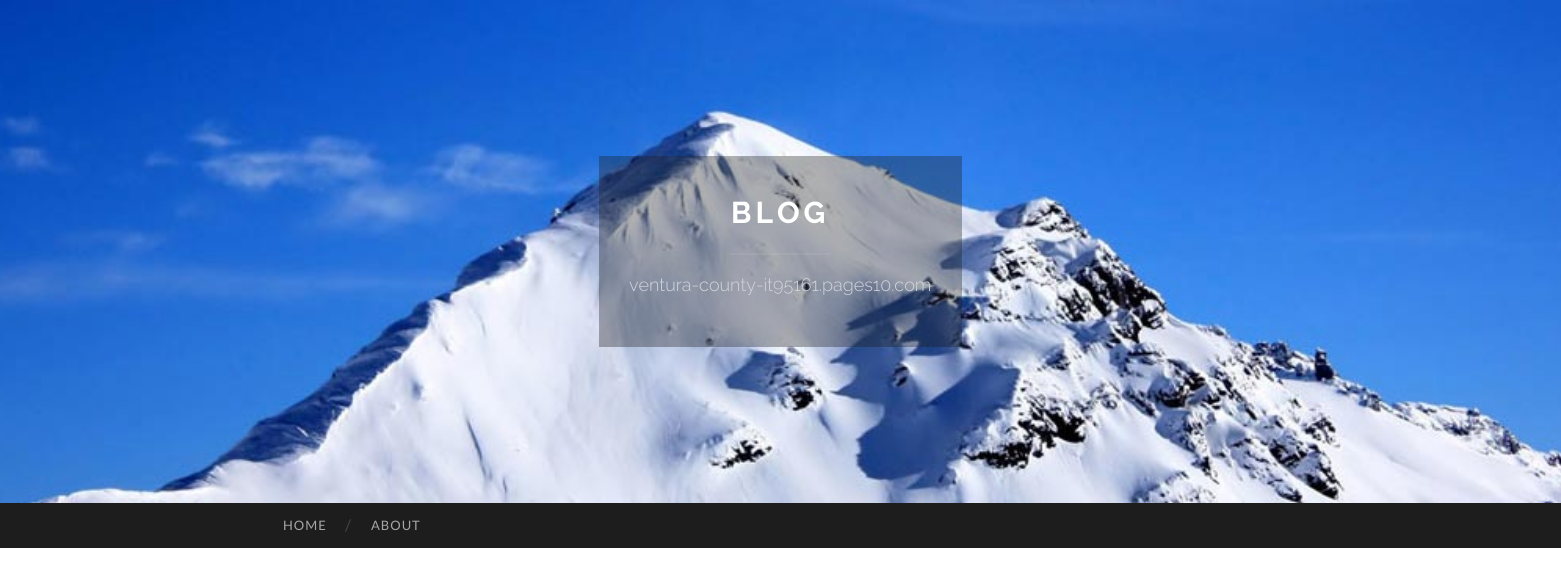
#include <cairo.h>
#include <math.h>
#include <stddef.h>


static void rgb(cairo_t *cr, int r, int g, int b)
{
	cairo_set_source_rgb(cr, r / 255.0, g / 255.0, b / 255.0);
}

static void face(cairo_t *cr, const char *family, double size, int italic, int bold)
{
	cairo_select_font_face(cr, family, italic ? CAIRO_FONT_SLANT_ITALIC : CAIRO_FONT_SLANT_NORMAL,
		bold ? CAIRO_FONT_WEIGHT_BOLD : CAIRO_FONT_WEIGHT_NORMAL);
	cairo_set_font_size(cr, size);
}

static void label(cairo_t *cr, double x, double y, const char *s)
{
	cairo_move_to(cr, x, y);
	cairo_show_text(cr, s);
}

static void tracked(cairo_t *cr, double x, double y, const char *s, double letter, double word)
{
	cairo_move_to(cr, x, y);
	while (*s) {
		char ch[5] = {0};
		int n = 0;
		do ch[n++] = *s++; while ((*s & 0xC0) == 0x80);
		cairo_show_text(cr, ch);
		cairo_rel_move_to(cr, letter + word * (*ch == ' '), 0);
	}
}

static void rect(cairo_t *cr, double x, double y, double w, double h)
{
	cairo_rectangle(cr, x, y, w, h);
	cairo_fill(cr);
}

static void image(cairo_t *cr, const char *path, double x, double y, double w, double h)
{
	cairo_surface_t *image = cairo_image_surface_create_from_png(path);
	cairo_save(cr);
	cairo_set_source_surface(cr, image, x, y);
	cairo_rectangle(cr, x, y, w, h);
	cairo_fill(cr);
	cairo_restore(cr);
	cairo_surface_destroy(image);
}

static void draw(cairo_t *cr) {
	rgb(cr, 255, 255, 255);
	cairo_paint(cr);
	image(cr, "image0.png", 0, 0, 1561, 503);
	cairo_set_source_rgba(cr, 0.114, 0.114, 0.114, 0.34);
	rect(cr, 599, 156, 363, 191);
	face(cr, "Raleway", 30, 0, 1);
	rgb(cr, 255, 255, 255);
	tracked(cr, 731, 223, "BLOG", 4, 0);
	cairo_set_source_rgba(cr, 1, 1, 1, 0.06);
	rect(cr, 730, 253, 100, 2);
	face(cr, "Raleway Light", 18, 0, 0);
	rgb(cr, 209, 212, 218);
	label(cr, 629, 291, "ventura-county-it95161.pages10.com");
	rgb(cr, 29, 29, 29);
	rect(cr, 0, 503, 1561, 45);
	face(cr, "Lato", 13, 0, 0);
	rgb(cr, 165, 165, 165);
	tracked(cr, 283, 530, "HOME", 1, 0);
	face(cr, "Lato", 16, 0, 0);
	rgb(cr, 68, 68, 68);
	label(cr, 345, 531, "/");
	face(cr, "Lato", 13, 0, 0);
	rgb(cr, 165, 165, 165);
	tracked(cr, 371, 530, "ABOUT", 1, 0);
}

int main(void) {
	cairo_surface_t *surface = cairo_image_surface_create(CAIRO_FORMAT_RGB24, 1561, 579);
	cairo_t *cr = cairo_create(surface);
	cairo_font_options_t *options = cairo_font_options_create();
	cairo_font_options_set_hint_metrics(options, CAIRO_HINT_METRICS_OFF);
	cairo_font_options_set_hint_style(options, CAIRO_HINT_STYLE_NONE);
	cairo_set_font_options(cr, options);
	cairo_set_miter_limit(cr, 4);
	draw(cr);
	cairo_surface_write_to_png(surface, "render.png");
	cairo_font_options_destroy(options);
	cairo_destroy(cr);
	cairo_surface_destroy(surface);
	return 0;
}
